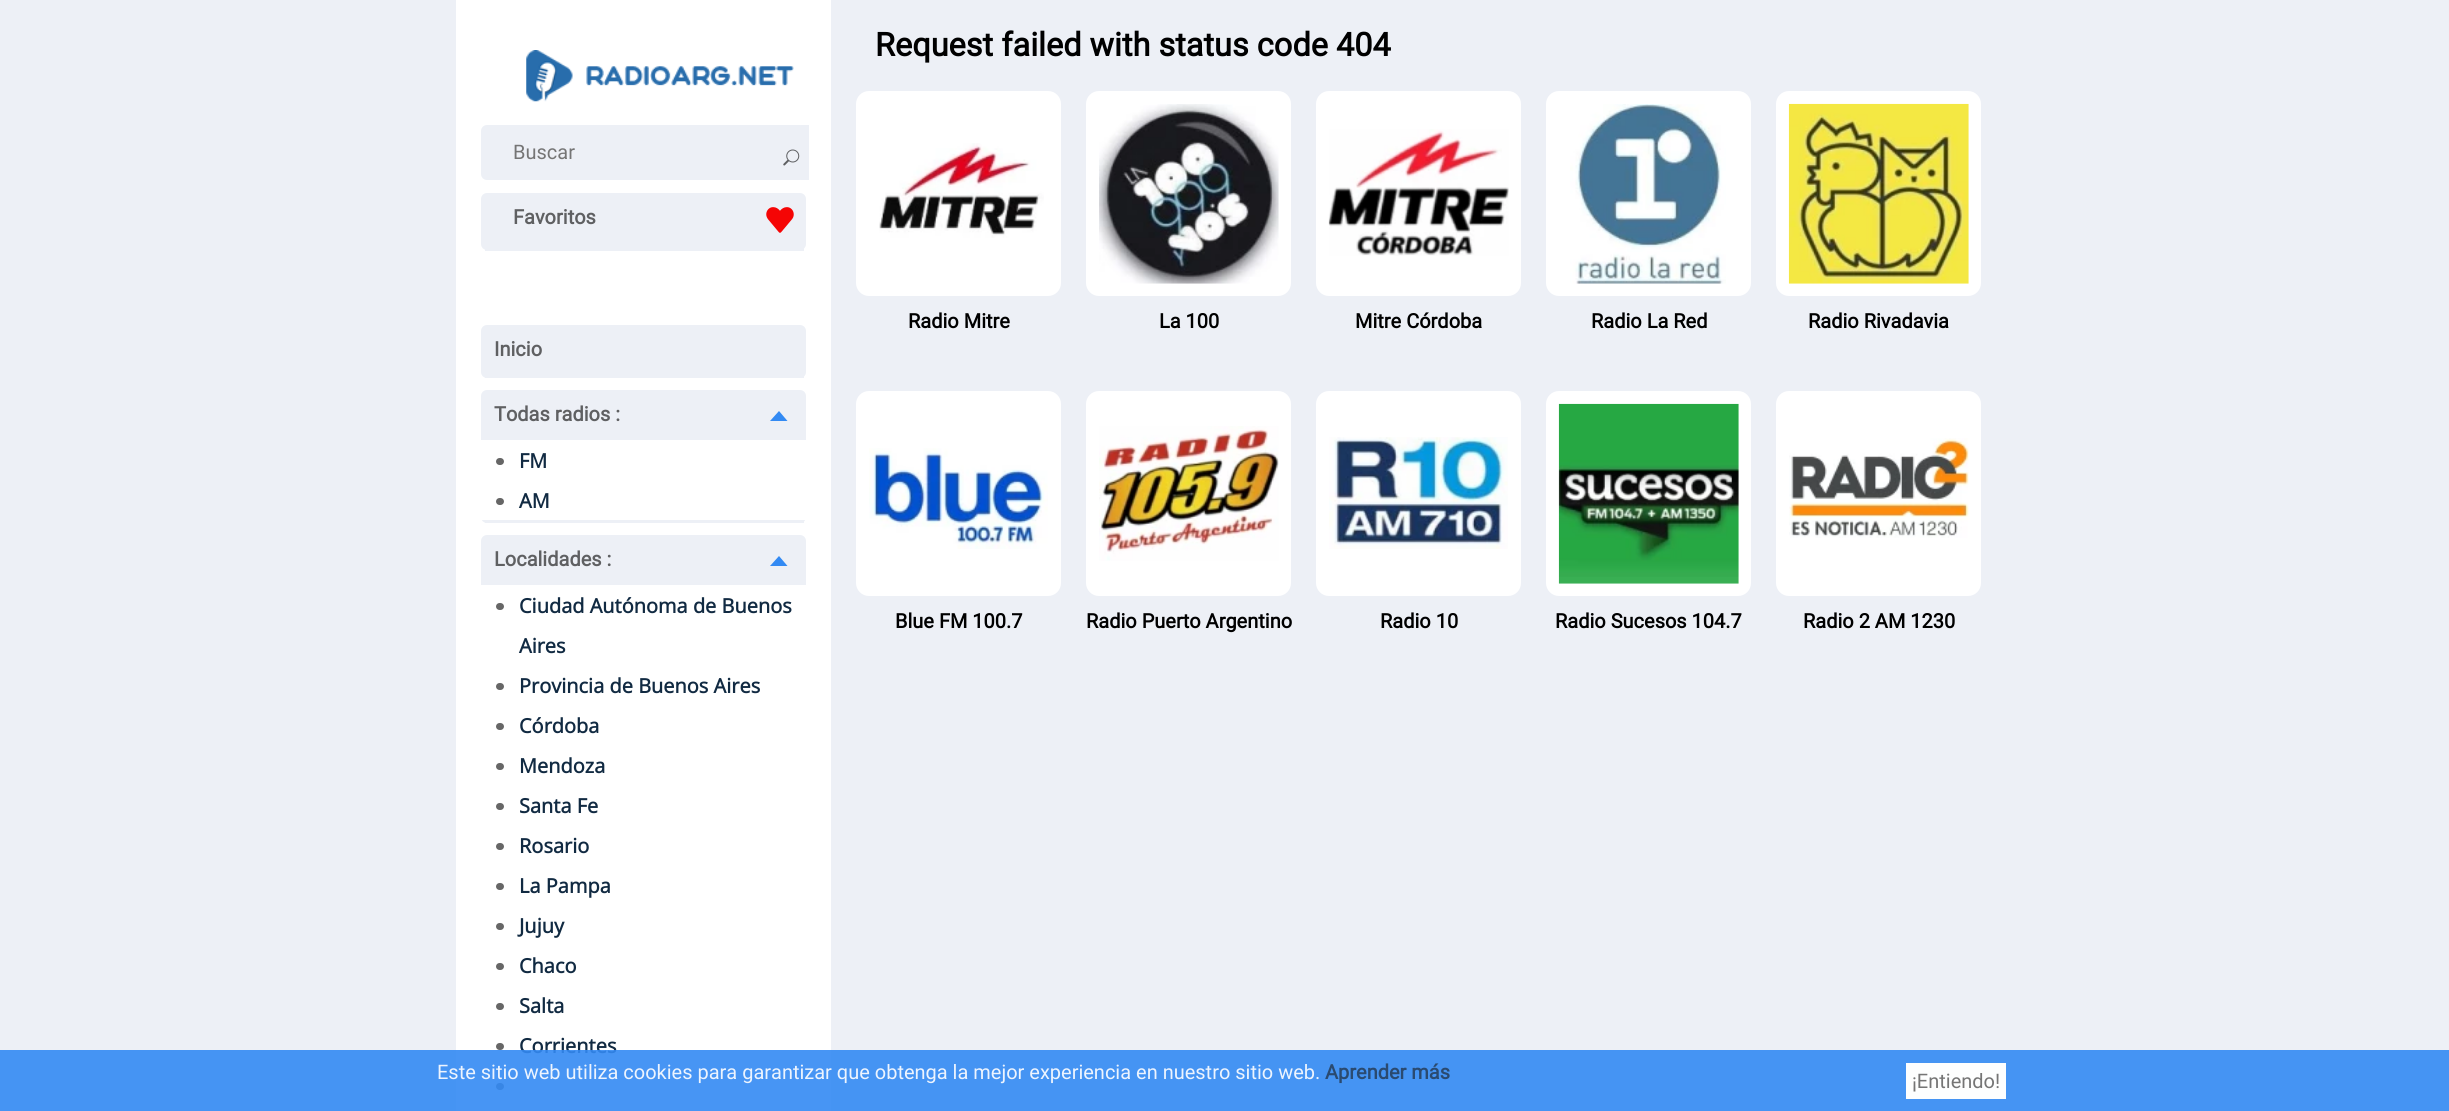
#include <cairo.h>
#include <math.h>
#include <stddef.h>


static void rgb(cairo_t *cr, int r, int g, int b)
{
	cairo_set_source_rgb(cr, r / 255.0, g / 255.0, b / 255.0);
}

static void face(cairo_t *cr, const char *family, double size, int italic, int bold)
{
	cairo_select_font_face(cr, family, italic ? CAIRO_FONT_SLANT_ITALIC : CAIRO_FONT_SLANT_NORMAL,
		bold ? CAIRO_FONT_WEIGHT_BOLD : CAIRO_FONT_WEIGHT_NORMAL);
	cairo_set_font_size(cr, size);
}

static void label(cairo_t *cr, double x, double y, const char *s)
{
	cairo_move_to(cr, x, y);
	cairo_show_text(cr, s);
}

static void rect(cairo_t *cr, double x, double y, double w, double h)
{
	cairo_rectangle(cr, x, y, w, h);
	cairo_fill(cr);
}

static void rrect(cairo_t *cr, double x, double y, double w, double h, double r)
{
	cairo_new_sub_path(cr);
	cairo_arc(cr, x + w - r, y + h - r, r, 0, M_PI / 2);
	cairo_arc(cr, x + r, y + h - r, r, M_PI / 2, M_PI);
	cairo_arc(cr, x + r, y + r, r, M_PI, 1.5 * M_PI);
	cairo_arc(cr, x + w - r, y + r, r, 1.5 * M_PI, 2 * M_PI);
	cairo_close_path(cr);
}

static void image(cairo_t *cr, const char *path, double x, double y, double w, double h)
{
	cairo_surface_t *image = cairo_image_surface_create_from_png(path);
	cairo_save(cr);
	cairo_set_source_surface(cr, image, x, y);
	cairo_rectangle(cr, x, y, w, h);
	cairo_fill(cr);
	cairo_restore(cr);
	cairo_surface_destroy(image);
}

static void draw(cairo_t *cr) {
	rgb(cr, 237, 240, 246);
	cairo_paint(cr);
	rgb(cr, 255, 255, 255);
	rect(cr, 456, 0, 375, 1111);
	image(cr, "image0.png", 526, 50, 268, 52);
	rgb(cr, 237, 240, 246);
	rrect(cr, 481, 125, 325, 55, 6);
	cairo_fill(cr);
	face(cr, "Roboto", 20, 0, 0);
	rgb(cr, 117, 117, 117);
	label(cr, 513, 159, "Buscar");
	rgb(cr, 237, 240, 246);
	rect(cr, 801, 125, 8, 55);
	image(cr, "image1.png", 783, 149, 17, 17);
	rrect(cr, 481, 193, 325, 57, 6);
	cairo_fill(cr);
	rect(cr, 485, 248, 319, 3);
	face(cr, "Roboto", 20, 0, 1);
	rgb(cr, 95, 96, 98);
	label(cr, 513, 224, "Favoritos");
	image(cr, "image2.png", 766, 207, 28, 26);
	rgb(cr, 237, 240, 246);
	rrect(cr, 481, 325, 325, 53, 6);
	cairo_fill(cr);
	rect(cr, 485, 376, 319, 2);
	rgb(cr, 95, 96, 98);
	label(cr, 494, 356, "Inicio");
	rgb(cr, 237, 240, 246);
	rrect(cr, 481, 390, 325, 133, 6);
	cairo_fill(cr);
	rect(cr, 485, 521, 319, 2);
	rgb(cr, 95, 96, 98);
	label(cr, 494, 421, "Todas radios :");
	rgb(cr, 51, 138, 243);
	cairo_new_path(cr);
	cairo_move_to(cr, 787.5, 421);
	cairo_line_to(cr, 770, 421);
	cairo_line_to(cr, 779, 411);
	cairo_close_path(cr);
	cairo_fill(cr);
	rgb(cr, 255, 255, 255);
	rect(cr, 481, 440, 325, 80);
	rgb(cr, 102, 102, 102);
	rrect(cr, 496, 458, 8, 7, 3.5);
	cairo_fill(cr);
	face(cr, "Open Sans", 20, 0, 1);
	rgb(cr, 17, 42, 66);
	label(cr, 519, 468, "FM");
	rgb(cr, 102, 102, 102);
	rrect(cr, 496, 498, 8, 7, 3.5);
	cairo_fill(cr);
	rgb(cr, 17, 42, 66);
	label(cr, 519, 508, "AM");
	rgb(cr, 237, 240, 246);
	rrect(cr, 481, 535, 325, 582, 6);
	cairo_fill(cr);
	face(cr, "Roboto", 20, 0, 1);
	rgb(cr, 95, 96, 98);
	label(cr, 494, 566, "Localidades :");
	rgb(cr, 51, 138, 243);
	cairo_new_path(cr);
	cairo_move_to(cr, 787.5, 566);
	cairo_line_to(cr, 770, 566);
	cairo_line_to(cr, 779, 556);
	cairo_close_path(cr);
	cairo_fill(cr);
	rgb(cr, 255, 255, 255);
	rect(cr, 481, 585, 325, 526);
	rgb(cr, 102, 102, 102);
	rrect(cr, 496, 603, 8, 7, 3.5);
	cairo_fill(cr);
	face(cr, "Open Sans", 20, 0, 1);
	rgb(cr, 17, 42, 66);
	label(cr, 519, 613, "Ciudad Autónoma de Buenos");
	label(cr, 519, 653, "Aires");
	rgb(cr, 102, 102, 102);
	rrect(cr, 496, 683, 8, 7, 3.5);
	cairo_fill(cr);
	rgb(cr, 17, 42, 66);
	label(cr, 519, 693, "Provincia de Buenos Aires");
	rgb(cr, 102, 102, 102);
	rrect(cr, 496, 723, 8, 7, 3.5);
	cairo_fill(cr);
	rgb(cr, 17, 42, 66);
	label(cr, 519, 733, "Córdoba");
	rgb(cr, 102, 102, 102);
	rrect(cr, 496, 763, 8, 7, 3.5);
	cairo_fill(cr);
	rgb(cr, 17, 42, 66);
	label(cr, 519, 773, "Mendoza");
	rgb(cr, 102, 102, 102);
	rrect(cr, 496, 803, 8, 7, 3.5);
	cairo_fill(cr);
	rgb(cr, 17, 42, 66);
	label(cr, 519, 813, "Santa Fe");
	rgb(cr, 102, 102, 102);
	rrect(cr, 496, 843, 8, 7, 3.5);
	cairo_fill(cr);
	rgb(cr, 17, 42, 66);
	label(cr, 519, 853, "Rosario");
	rgb(cr, 102, 102, 102);
	rrect(cr, 496, 883, 8, 7, 3.5);
	cairo_fill(cr);
	rgb(cr, 17, 42, 66);
	label(cr, 519, 893, "La Pampa");
	rgb(cr, 102, 102, 102);
	rrect(cr, 496, 923, 8, 7, 3.5);
	cairo_fill(cr);
	rgb(cr, 17, 42, 66);
	label(cr, 519, 933, "Jujuy");
	rgb(cr, 102, 102, 102);
	rrect(cr, 496, 963, 8, 7, 3.5);
	cairo_fill(cr);
	rgb(cr, 17, 42, 66);
	label(cr, 519, 973, "Chaco");
	rgb(cr, 102, 102, 102);
	rrect(cr, 496, 1003, 8, 7, 3.5);
	cairo_fill(cr);
	rgb(cr, 17, 42, 66);
	label(cr, 519, 1013, "Salta");
	rgb(cr, 102, 102, 102);
	rrect(cr, 496, 1043, 8, 7, 3.5);
	cairo_fill(cr);
	rgb(cr, 17, 42, 66);
	label(cr, 519, 1053, "Corrientes");
	rgb(cr, 102, 102, 102);
	rrect(cr, 496, 1083, 8, 7, 3.5);
	cairo_fill(cr);
	face(cr, "Roboto", 32.5, 0, 1);
	rgb(cr, 0, 0, 0);
	label(cr, 875, 56, "Request failed with status code 404");
	rgb(cr, 255, 255, 255);
	rrect(cr, 856, 91, 205, 205, 13);
	cairo_fill(cr);
	image(cr, "image3.png", 879, 143, 165, 95);
	face(cr, "Roboto", 20, 0, 1);
	rgb(cr, 0, 0, 0);
	label(cr, 908, 328, "Radio Mitre");
	rgb(cr, 255, 255, 255);
	rrect(cr, 1086, 91, 205, 205, 13);
	cairo_fill(cr);
	image(cr, "image4.png", 1099, 104, 180, 180);
	rgb(cr, 0, 0, 0);
	label(cr, 1159, 328, "La 100");
	rgb(cr, 255, 255, 255);
	rrect(cr, 1316, 91, 205, 205, 13);
	cairo_fill(cr);
	image(cr, "image5.png", 1328, 129, 181, 127);
	rgb(cr, 0, 0, 0);
	label(cr, 1355, 328, "Mitre Córdoba");
	rgb(cr, 255, 255, 255);
	rrect(cr, 1546, 91, 205, 205, 13);
	cairo_fill(cr);
	image(cr, "image6.png", 1570, 104, 156, 180);
	rgb(cr, 0, 0, 0);
	label(cr, 1591, 328, "Radio La Red");
	rgb(cr, 255, 255, 255);
	rrect(cr, 1776, 91, 205, 205, 13);
	cairo_fill(cr);
	image(cr, "image7.png", 1788, 103, 181, 181);
	rgb(cr, 0, 0, 0);
	label(cr, 1808, 328, "Radio Rivadavia");
	rgb(cr, 255, 255, 255);
	rrect(cr, 856, 391, 205, 205, 13);
	cairo_fill(cr);
	image(cr, "image8.png", 869, 448, 179, 101);
	rgb(cr, 0, 0, 0);
	label(cr, 895, 628, "Blue FM 100.7");
	rgb(cr, 255, 255, 255);
	rrect(cr, 1086, 391, 205, 205, 13);
	cairo_fill(cr);
	image(cr, "image9.png", 1099, 426, 180, 135);
	rgb(cr, 0, 0, 0);
	label(cr, 1086, 628, "Radio Puerto Argentino");
	rgb(cr, 255, 255, 255);
	rrect(cr, 1316, 391, 205, 205, 13);
	cairo_fill(cr);
	image(cr, "image10.png", 1329, 437, 179, 112);
	rgb(cr, 0, 0, 0);
	label(cr, 1380, 628, "Radio 10");
	rgb(cr, 255, 255, 255);
	rrect(cr, 1546, 391, 205, 205, 13);
	cairo_fill(cr);
	image(cr, "image11.png", 1558, 403, 181, 181);
	rgb(cr, 0, 0, 0);
	label(cr, 1555, 628, "Radio Sucesos 104.7");
	rgb(cr, 255, 255, 255);
	rrect(cr, 1776, 391, 205, 205, 13);
	cairo_fill(cr);
	image(cr, "image12.png", 1789, 438, 180, 100);
	rgb(cr, 0, 0, 0);
	label(cr, 1803, 628, "Radio 2 AM 1230");
	cairo_set_source_rgba(cr, 0.2, 0.541, 0.953, 0.9);
	rect(cr, 0, 1050, 2449, 61);
	face(cr, "Roboto", 20, 0, 0);
	rgb(cr, 237, 244, 254);
	label(cr, 437, 1079, "Este sitio web utiliza cookies para garantizar que obtenga la mejor experiencia en nuestro sitio web.");
	face(cr, "Roboto", 20, 0, 1);
	rgb(cr, 42, 74, 112);
	label(cr, 1325, 1079, "Aprender más");
	rgb(cr, 253, 254, 254);
	rect(cr, 1906, 1063, 100, 36);
	face(cr, "Roboto", 20, 0, 0);
	rgb(cr, 117, 117, 117);
	label(cr, 1912, 1088, "¡Entiendo!");
}

int main(void) {
	cairo_surface_t *surface = cairo_image_surface_create(CAIRO_FORMAT_RGB24, 2449, 1111);
	cairo_t *cr = cairo_create(surface);
	cairo_font_options_t *options = cairo_font_options_create();
	cairo_font_options_set_hint_metrics(options, CAIRO_HINT_METRICS_OFF);
	cairo_font_options_set_hint_style(options, CAIRO_HINT_STYLE_NONE);
	cairo_set_font_options(cr, options);
	cairo_set_miter_limit(cr, 4);
	draw(cr);
	cairo_surface_write_to_png(surface, "render.png");
	cairo_font_options_destroy(options);
	cairo_destroy(cr);
	cairo_surface_destroy(surface);
	return 0;
}
